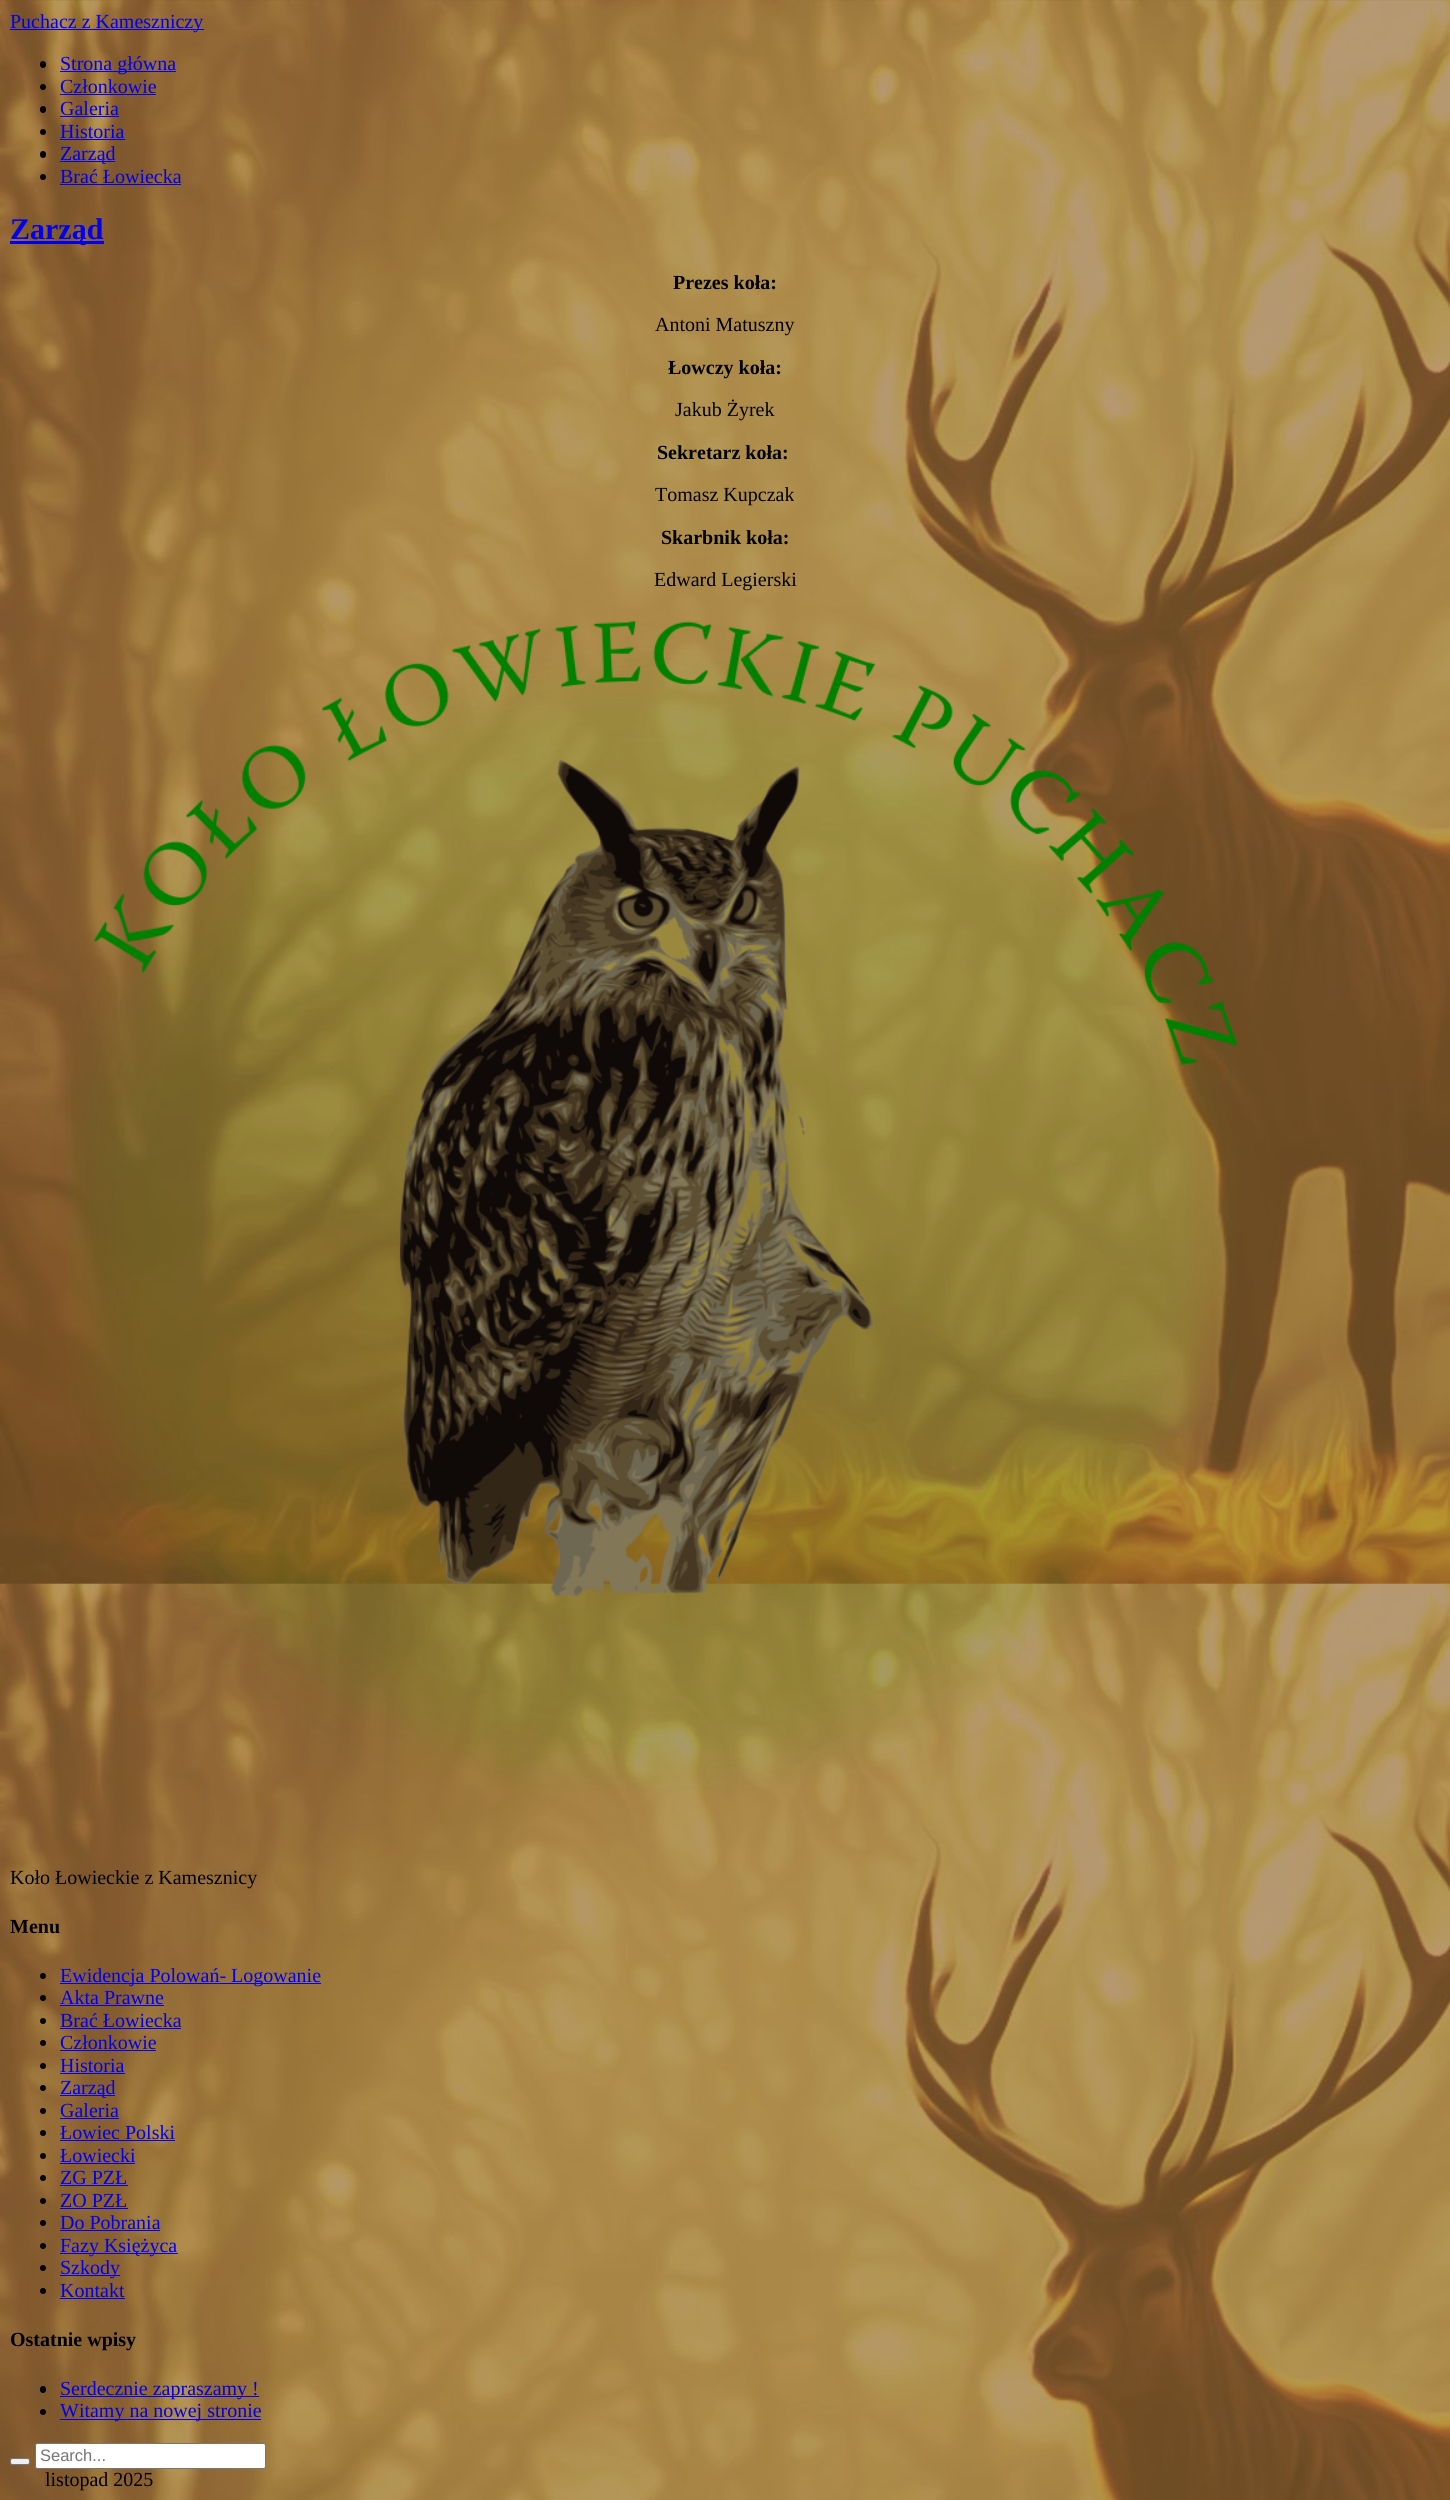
#include <cairo.h>
#include <math.h>
#include <stddef.h>


static void rgb(cairo_t *cr, int r, int g, int b)
{
	cairo_set_source_rgb(cr, r / 255.0, g / 255.0, b / 255.0);
}

static void face(cairo_t *cr, const char *family, double size, int italic, int bold)
{
	cairo_select_font_face(cr, family, italic ? CAIRO_FONT_SLANT_ITALIC : CAIRO_FONT_SLANT_NORMAL,
		bold ? CAIRO_FONT_WEIGHT_BOLD : CAIRO_FONT_WEIGHT_NORMAL);
	cairo_set_font_size(cr, size);
}

static void label(cairo_t *cr, double x, double y, const char *s)
{
	cairo_move_to(cr, x, y);
	cairo_show_text(cr, s);
}

static void rect(cairo_t *cr, double x, double y, double w, double h)
{
	cairo_rectangle(cr, x, y, w, h);
	cairo_fill(cr);
}

static void rrect(cairo_t *cr, double x, double y, double w, double h, double r)
{
	cairo_new_sub_path(cr);
	cairo_arc(cr, x + w - r, y + h - r, r, 0, M_PI / 2);
	cairo_arc(cr, x + r, y + h - r, r, M_PI / 2, M_PI);
	cairo_arc(cr, x + r, y + r, r, M_PI, 1.5 * M_PI);
	cairo_arc(cr, x + w - r, y + r, r, 1.5 * M_PI, 2 * M_PI);
	cairo_close_path(cr);
}

static void image(cairo_t *cr, const char *path, double x, double y, double w, double h)
{
	cairo_surface_t *image = cairo_image_surface_create_from_png(path);
	cairo_save(cr);
	cairo_set_source_surface(cr, image, x, y);
	cairo_rectangle(cr, x, y, w, h);
	cairo_fill(cr);
	cairo_restore(cr);
	cairo_surface_destroy(image);
}

static void draw(cairo_t *cr) {
	rgb(cr, 255, 255, 255);
	cairo_paint(cr);
	image(cr, "image0.png", 0, 0, 1450, 2500);
	rgb(cr, 0, 0, 238);
	rect(cr, 10, 29, 194, 1);
	face(cr, "Liberation Serif", 20, 0, 0);
	label(cr, 10, 28, "Puchacz z Kameszniczy");
	rgb(cr, 0, 0, 0);
	rrect(cr, 40, 61, 6, 7, 3);
	cairo_fill(cr);
	rgb(cr, 0, 0, 238);
	rect(cr, 60, 71, 116, 1);
	label(cr, 60, 70, "Strona główna");
	rgb(cr, 0, 0, 0);
	cairo_new_path(cr);
	cairo_arc(cr, 43, 87, 3, 0, 2 * M_PI);
	cairo_fill(cr);
	rgb(cr, 0, 0, 238);
	label(cr, 60, 93, "Członkowie");
	rect(cr, 60, 94, 96, 1);
	rgb(cr, 0, 0, 0);
	rrect(cr, 40, 106, 6, 7, 3);
	cairo_fill(cr);
	rgb(cr, 0, 0, 238);
	label(cr, 60, 115, "Galeria");
	rect(cr, 60, 116, 59, 1);
	rgb(cr, 0, 0, 0);
	cairo_new_path(cr);
	cairo_arc(cr, 43, 132, 3, 0, 2 * M_PI);
	cairo_fill(cr);
	rgb(cr, 0, 0, 238);
	label(cr, 60, 138, "Historia");
	rect(cr, 60, 139, 65, 1);
	rgb(cr, 0, 0, 0);
	rrect(cr, 40, 151, 6, 7, 3);
	cairo_fill(cr);
	rgb(cr, 0, 0, 238);
	rect(cr, 60, 161, 55, 1);
	label(cr, 60, 160, "Zarząd");
	rgb(cr, 0, 0, 0);
	cairo_new_path(cr);
	cairo_arc(cr, 43, 177, 3, 0, 2 * M_PI);
	cairo_fill(cr);
	rgb(cr, 0, 0, 238);
	label(cr, 60, 183, "Brać Łowiecka");
	rect(cr, 60, 184, 121, 1);
	rect(cr, 10, 241, 94, 3);
	face(cr, "Liberation Serif", 30, 0, 1);
	label(cr, 10, 239, "Zarząd");
	face(cr, "Liberation Serif", 20, 0, 1);
	rgb(cr, 0, 0, 0);
	label(cr, 673, 289, "Prezes koła:");
	face(cr, "Liberation Serif", 20, 0, 0);
	label(cr, 655, 331, "Antoni Matuszny");
	face(cr, "Liberation Serif", 20, 0, 1);
	label(cr, 668, 374, "Łowczy koła:");
	face(cr, "Liberation Serif", 20, 0, 0);
	label(cr, 675, 416, "Jakub Żyrek");
	face(cr, "Liberation Serif", 20, 0, 1);
	label(cr, 657, 459, "Sekretarz koła:");
	face(cr, "Liberation Serif", 20, 0, 0);
	label(cr, 655, 501, "Tomasz Kupczak");
	face(cr, "Liberation Serif", 20, 0, 1);
	label(cr, 661, 544, "Skarbnik koła:");
	face(cr, "Liberation Serif", 20, 0, 0);
	label(cr, 654, 586, "Edward Legierski");
	image(cr, "image1.png", 67, 621, 1171, 1170);
	label(cr, 10, 1884, "Koło Łowieckie z Kamesznicy");
	face(cr, "Liberation Serif", 20, 0, 1);
	label(cr, 10, 1933, "Menu");
	cairo_new_path(cr);
	cairo_arc(cr, 43, 1976, 3, 0, 2 * M_PI);
	cairo_fill(cr);
	rgb(cr, 0, 0, 238);
	rect(cr, 60, 1983, 261, 1);
	face(cr, "Liberation Serif", 20, 0, 0);
	label(cr, 60, 1982, "Ewidencja Polowań- Logowanie");
	rgb(cr, 0, 0, 0);
	cairo_new_path(cr);
	cairo_arc(cr, 43, 1998, 3, 0, 2 * M_PI);
	cairo_fill(cr);
	rgb(cr, 0, 0, 238);
	label(cr, 60, 2004, "Akta Prawne");
	rect(cr, 60, 2005, 104, 1);
	rgb(cr, 0, 0, 0);
	cairo_new_path(cr);
	cairo_arc(cr, 43, 2021, 3, 0, 2 * M_PI);
	cairo_fill(cr);
	rgb(cr, 0, 0, 238);
	label(cr, 60, 2027, "Brać Łowiecka");
	rect(cr, 60, 2028, 121, 1);
	rgb(cr, 0, 0, 0);
	cairo_new_path(cr);
	cairo_arc(cr, 43, 2043, 3, 0, 2 * M_PI);
	cairo_fill(cr);
	rgb(cr, 0, 0, 238);
	label(cr, 60, 2049, "Członkowie");
	rect(cr, 60, 2050, 96, 1);
	rgb(cr, 0, 0, 0);
	cairo_new_path(cr);
	cairo_arc(cr, 43, 2066, 3, 0, 2 * M_PI);
	cairo_fill(cr);
	rgb(cr, 0, 0, 238);
	label(cr, 60, 2072, "Historia");
	rect(cr, 60, 2073, 65, 1);
	rgb(cr, 0, 0, 0);
	cairo_new_path(cr);
	cairo_arc(cr, 43, 2088, 3, 0, 2 * M_PI);
	cairo_fill(cr);
	rgb(cr, 0, 0, 238);
	rect(cr, 60, 2095, 55, 1);
	label(cr, 60, 2094, "Zarząd");
	rgb(cr, 0, 0, 0);
	cairo_new_path(cr);
	cairo_arc(cr, 43, 2111, 3, 0, 2 * M_PI);
	cairo_fill(cr);
	rgb(cr, 0, 0, 238);
	label(cr, 60, 2117, "Galeria");
	rect(cr, 60, 2118, 59, 1);
	rgb(cr, 0, 0, 0);
	cairo_new_path(cr);
	cairo_arc(cr, 43, 2133, 3, 0, 2 * M_PI);
	cairo_fill(cr);
	rgb(cr, 0, 0, 238);
	label(cr, 60, 2139, "Łowiec Polski");
	rect(cr, 60, 2140, 115, 1);
	rgb(cr, 0, 0, 0);
	cairo_new_path(cr);
	cairo_arc(cr, 43, 2156, 3, 0, 2 * M_PI);
	cairo_fill(cr);
	rgb(cr, 0, 0, 238);
	label(cr, 60, 2162, "Łowiecki");
	rect(cr, 60, 2163, 75, 1);
	rgb(cr, 0, 0, 0);
	cairo_new_path(cr);
	cairo_arc(cr, 43, 2178, 3, 0, 2 * M_PI);
	cairo_fill(cr);
	rgb(cr, 0, 0, 238);
	label(cr, 60, 2184, "ZG PZŁ");
	rect(cr, 60, 2185, 68, 1);
	rgb(cr, 0, 0, 0);
	cairo_new_path(cr);
	cairo_arc(cr, 43, 2201, 3, 0, 2 * M_PI);
	cairo_fill(cr);
	rgb(cr, 0, 0, 238);
	label(cr, 60, 2207, "ZO PZŁ");
	rect(cr, 60, 2208, 68, 1);
	rgb(cr, 0, 0, 0);
	cairo_new_path(cr);
	cairo_arc(cr, 43, 2223, 3, 0, 2 * M_PI);
	cairo_fill(cr);
	rgb(cr, 0, 0, 238);
	label(cr, 60, 2229, "Do Pobrania");
	rect(cr, 60, 2230, 100, 1);
	rgb(cr, 0, 0, 0);
	cairo_new_path(cr);
	cairo_arc(cr, 43, 2246, 3, 0, 2 * M_PI);
	cairo_fill(cr);
	rgb(cr, 0, 0, 238);
	rect(cr, 60, 2253, 118, 1);
	label(cr, 60, 2252, "Fazy Księżyca");
	rgb(cr, 0, 0, 0);
	cairo_new_path(cr);
	cairo_arc(cr, 43, 2268, 3, 0, 2 * M_PI);
	cairo_fill(cr);
	rgb(cr, 0, 0, 238);
	rect(cr, 60, 2275, 60, 1);
	label(cr, 60, 2274, "Szkody");
	rgb(cr, 0, 0, 0);
	cairo_new_path(cr);
	cairo_arc(cr, 43, 2291, 3, 0, 2 * M_PI);
	cairo_fill(cr);
	rgb(cr, 0, 0, 238);
	label(cr, 60, 2297, "Kontakt");
	rect(cr, 60, 2298, 65, 1);
	face(cr, "Liberation Serif", 20, 0, 1);
	rgb(cr, 0, 0, 0);
	label(cr, 10, 2346, "Ostatnie wpisy");
	rrect(cr, 40, 2386, 6, 7, 3);
	cairo_fill(cr);
	rgb(cr, 0, 0, 238);
	rect(cr, 60, 2396, 199, 1);
	face(cr, "Liberation Serif", 20, 0, 0);
	label(cr, 60, 2395, "Serdecznie zapraszamy !");
	rgb(cr, 0, 0, 0);
	cairo_new_path(cr);
	cairo_arc(cr, 43, 2412, 3, 0, 2 * M_PI);
	cairo_fill(cr);
	rgb(cr, 0, 0, 238);
	rect(cr, 60, 2419, 201, 1);
	label(cr, 60, 2417, "Witamy na nowej stronie");
	rgb(cr, 239, 239, 239);
	rrect(cr, 10.5, 2458.5, 19, 6, 2);
	cairo_fill_preserve(cr);
	rgb(cr, 118, 118, 118);
	cairo_set_line_width(cr, 1);
	cairo_stroke(cr);
	rgb(cr, 255, 255, 255);
	rrect(cr, 35.5, 2443.5, 230, 25, 2);
	cairo_fill_preserve(cr);
	rgb(cr, 118, 118, 118);
	cairo_stroke(cr);
	face(cr, "Liberation Sans", 16.5, 0, 0);
	rgb(cr, 117, 117, 117);
	label(cr, 40, 2461, "Search...");
	face(cr, "Liberation Serif", 20, 0, 0);
	rgb(cr, 0, 0, 0);
	label(cr, 45, 2486, "listopad 2025");
}

int main(void) {
	cairo_surface_t *surface = cairo_image_surface_create(CAIRO_FORMAT_RGB24, 1450, 2500);
	cairo_t *cr = cairo_create(surface);
	cairo_font_options_t *options = cairo_font_options_create();
	cairo_font_options_set_hint_metrics(options, CAIRO_HINT_METRICS_OFF);
	cairo_font_options_set_hint_style(options, CAIRO_HINT_STYLE_NONE);
	cairo_set_font_options(cr, options);
	cairo_set_miter_limit(cr, 4);
	draw(cr);
	cairo_surface_write_to_png(surface, "render.png");
	cairo_font_options_destroy(options);
	cairo_destroy(cr);
	cairo_surface_destroy(surface);
	return 0;
}
